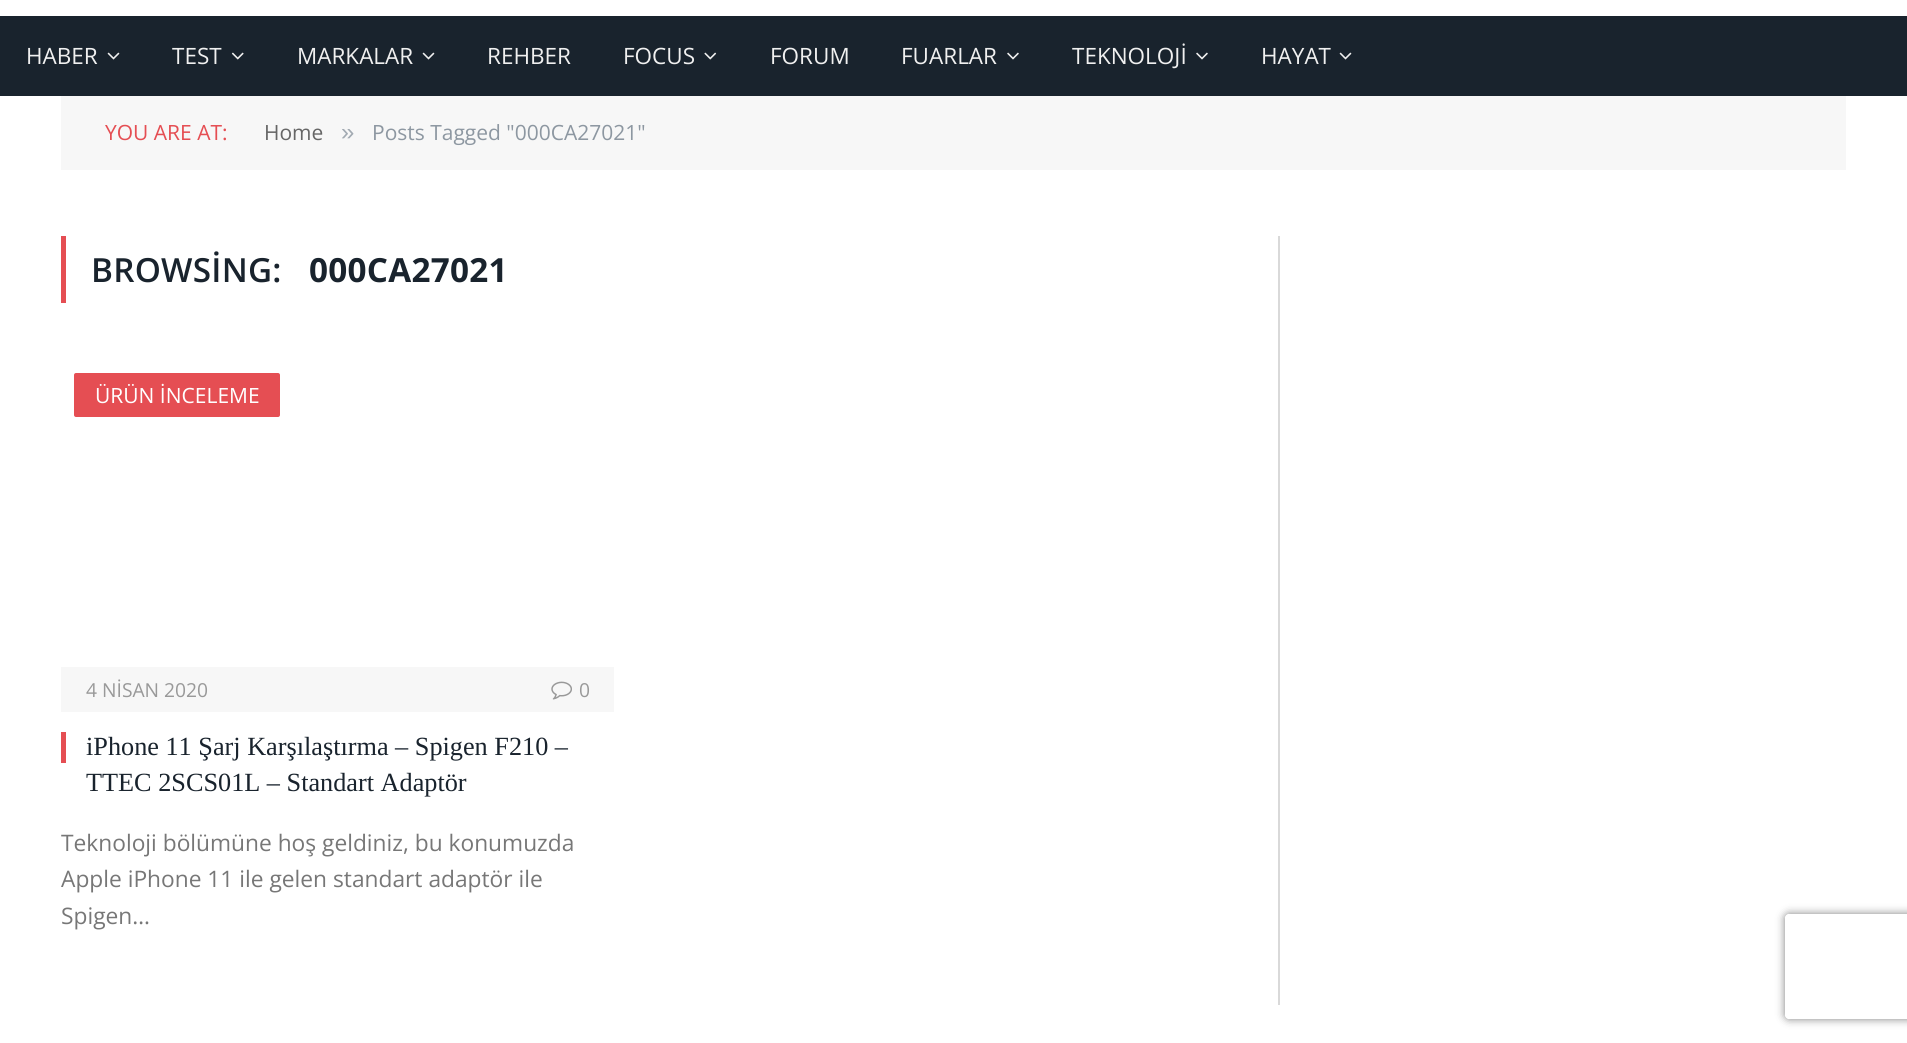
#include <cairo.h>
#include <math.h>
#include <stddef.h>


static void rgb(cairo_t *cr, int r, int g, int b)
{
	cairo_set_source_rgb(cr, r / 255.0, g / 255.0, b / 255.0);
}

static void face(cairo_t *cr, const char *family, double size, int italic, int bold)
{
	cairo_select_font_face(cr, family, italic ? CAIRO_FONT_SLANT_ITALIC : CAIRO_FONT_SLANT_NORMAL,
		bold ? CAIRO_FONT_WEIGHT_BOLD : CAIRO_FONT_WEIGHT_NORMAL);
	cairo_set_font_size(cr, size);
}

static void label(cairo_t *cr, double x, double y, const char *s)
{
	cairo_move_to(cr, x, y);
	cairo_show_text(cr, s);
}

static void tracked(cairo_t *cr, double x, double y, const char *s, double letter, double word)
{
	cairo_move_to(cr, x, y);
	while (*s) {
		char ch[5] = {0};
		int n = 0;
		do ch[n++] = *s++; while ((*s & 0xC0) == 0x80);
		cairo_show_text(cr, ch);
		cairo_rel_move_to(cr, letter + word * (*ch == ' '), 0);
	}
}

static void rect(cairo_t *cr, double x, double y, double w, double h)
{
	cairo_rectangle(cr, x, y, w, h);
	cairo_fill(cr);
}

static void rrect(cairo_t *cr, double x, double y, double w, double h, double r)
{
	cairo_new_sub_path(cr);
	cairo_arc(cr, x + w - r, y + h - r, r, 0, M_PI / 2);
	cairo_arc(cr, x + r, y + h - r, r, M_PI / 2, M_PI);
	cairo_arc(cr, x + r, y + r, r, M_PI, 1.5 * M_PI);
	cairo_arc(cr, x + w - r, y + r, r, 1.5 * M_PI, 2 * M_PI);
	cairo_close_path(cr);
}

static void soft_shadow(cairo_t *cr, double x, double y, double w, double h, double r, double blur, double alpha)
{
	cairo_push_group_with_content(cr, CAIRO_CONTENT_ALPHA);
	cairo_set_operator(cr, CAIRO_OPERATOR_SOURCE);
	for (int i = 15; i >= -15 && fmin(w, h) + blur * i / 3 > 0; i -= 2) {
		double e = blur * i / 6;
		cairo_set_source_rgba(cr, 0, 0, 0, alpha * erfc((i - 1) / 8.5) / 2);
		rrect(cr, x - e, y - e, w + 2 * e, h + 2 * e, fmax(0, fmin(r + e + blur * .6, fmin(w, h) / 2 + e)));
		cairo_fill(cr);
	}
	cairo_pattern_t *soft = cairo_pop_group(cr);
	cairo_mask(cr, soft);
	cairo_pattern_destroy(soft);
}

static void image(cairo_t *cr, const char *path, double x, double y, double w, double h)
{
	cairo_surface_t *image = cairo_image_surface_create_from_png(path);
	cairo_save(cr);
	cairo_set_source_surface(cr, image, x, y);
	cairo_rectangle(cr, x, y, w, h);
	cairo_fill(cr);
	cairo_restore(cr);
	cairo_surface_destroy(image);
}

static void draw(cairo_t *cr) {
	rgb(cr, 255, 255, 255);
	cairo_paint(cr);
	rgb(cr, 25, 35, 45);
	rect(cr, 0, 16, 1907, 80);
	face(cr, "Open Sans", 22.5, 0, 0);
	rgb(cr, 240, 240, 240);
	label(cr, 26, 64, "HABER");
	image(cr, "image0.png", 107, 52, 13, 8);
	label(cr, 172, 64, "TEST");
	image(cr, "image1.png", 231, 52, 13, 8);
	label(cr, 297, 64, "MARKALAR");
	image(cr, "image0.png", 422, 52, 13, 8);
	label(cr, 487, 64, "REHBER");
	label(cr, 623, 64, "FOCUS");
	image(cr, "image2.png", 704, 52, 13, 8);
	label(cr, 770, 64, "FORUM");
	label(cr, 901, 64, "FUARLAR");
	image(cr, "image3.png", 1007, 52, 12, 8);
	label(cr, 1072, 64, "TEKNOLOJİ");
	image(cr, "image3.png", 1196, 52, 12, 8);
	label(cr, 1261, 64, "HAYAT");
	image(cr, "image0.png", 1339, 52, 13, 8);
	rgb(cr, 247, 247, 247);
	rect(cr, 61, 96, 1785, 74);
	face(cr, "Open Sans", 21, 0, 0);
	rgb(cr, 229, 78, 83);
	label(cr, 105, 140, "YOU ARE AT:");
	rgb(cr, 102, 102, 102);
	label(cr, 264, 140, "Home");
	face(cr, "Liberation Sans", 24, 0, 0);
	rgb(cr, 162, 170, 178);
	label(cr, 341, 140, "»");
	face(cr, "Open Sans", 21, 0, 0);
	rgb(cr, 141, 151, 161);
	label(cr, 372, 140, "Posts Tagged \"000CA27021\"");
	rgb(cr, 229, 78, 83);
	rect(cr, 61, 236, 5, 67);
	face(cr, "Open Sans SemiBold", 33.25, 0, 0);
	rgb(cr, 25, 35, 45);
	tracked(cr, 91, 282, "BROWSİNG:", 0.25, 0);
	face(cr, "Open Sans", 33.25, 0, 1);
	tracked(cr, 309, 282, "000CA27021", 0.25, 0);
	rgb(cr, 229, 78, 83);
	rrect(cr, 74, 373, 206, 44, 2);
	cairo_fill(cr);
	face(cr, "Open Sans", 21, 0, 0);
	rgb(cr, 255, 255, 255);
	label(cr, 95, 403, "ÜRÜN İNCELEME");
	rgb(cr, 247, 247, 247);
	rect(cr, 61, 667, 553, 45);
	face(cr, "Open Sans", 19.25, 0, 0);
	rgb(cr, 153, 153, 153);
	label(cr, 86, 697, "4 NİSAN 2020");
	image(cr, "image4.png", 551, 681, 21, 19);
	label(cr, 579, 697, "0");
	rgb(cr, 229, 78, 83);
	rect(cr, 61, 732, 5, 31);
	face(cr, "Liberation Serif", 26.25, 0, 0);
	rgb(cr, 25, 35, 45);
	label(cr, 86, 755, "iPhone 11 Şarj Karşılaştırma – Spigen F210 –");
	label(cr, 86, 791, "TTEC 2SCS01L – Standart Adaptör");
	face(cr, "Open Sans", 22.75, 0, 0);
	rgb(cr, 119, 119, 119);
	label(cr, 61, 851, "Teknoloji bölümüne hoş geldiniz, bu konumuzda");
	label(cr, 61, 887, "Apple iPhone 11 ile gelen standart adaptör ile");
	label(cr, 61, 924, "Spigen…");
	rgb(cr, 217, 217, 217);
	rect(cr, 1278, 236, 2, 769);
	cairo_save(cr);
	cairo_set_fill_rule(cr, CAIRO_FILL_RULE_EVEN_ODD);
	cairo_new_path(cr);
	cairo_move_to(cr, 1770, 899);
	cairo_line_to(cr, 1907, 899);
	cairo_line_to(cr, 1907, 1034);
	cairo_line_to(cr, 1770, 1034);
	cairo_close_path(cr);
	cairo_move_to(cr, 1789, 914);
	cairo_line_to(cr, 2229, 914);
	cairo_curve_to(cr, 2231, 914, 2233, 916, 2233, 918);
	cairo_line_to(cr, 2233, 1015);
	cairo_curve_to(cr, 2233, 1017, 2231, 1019, 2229, 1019);
	cairo_line_to(cr, 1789, 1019);
	cairo_curve_to(cr, 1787, 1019, 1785, 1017, 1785, 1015);
	cairo_line_to(cr, 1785, 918);
	cairo_curve_to(cr, 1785, 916, 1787, 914, 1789, 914);
	cairo_close_path(cr);
	cairo_clip(cr);
	rgb(cr, 128, 128, 128);
	soft_shadow(cr, 1785, 914, 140, 105, 4, 4.5, 1);
	cairo_restore(cr);
}

int main(void) {
	cairo_surface_t *surface = cairo_image_surface_create(CAIRO_FORMAT_RGB24, 1907, 1043);
	cairo_t *cr = cairo_create(surface);
	cairo_font_options_t *options = cairo_font_options_create();
	cairo_font_options_set_hint_metrics(options, CAIRO_HINT_METRICS_OFF);
	cairo_font_options_set_hint_style(options, CAIRO_HINT_STYLE_NONE);
	cairo_set_font_options(cr, options);
	cairo_set_miter_limit(cr, 4);
	draw(cr);
	cairo_surface_write_to_png(surface, "render.png");
	cairo_font_options_destroy(options);
	cairo_destroy(cr);
	cairo_surface_destroy(surface);
	return 0;
}
